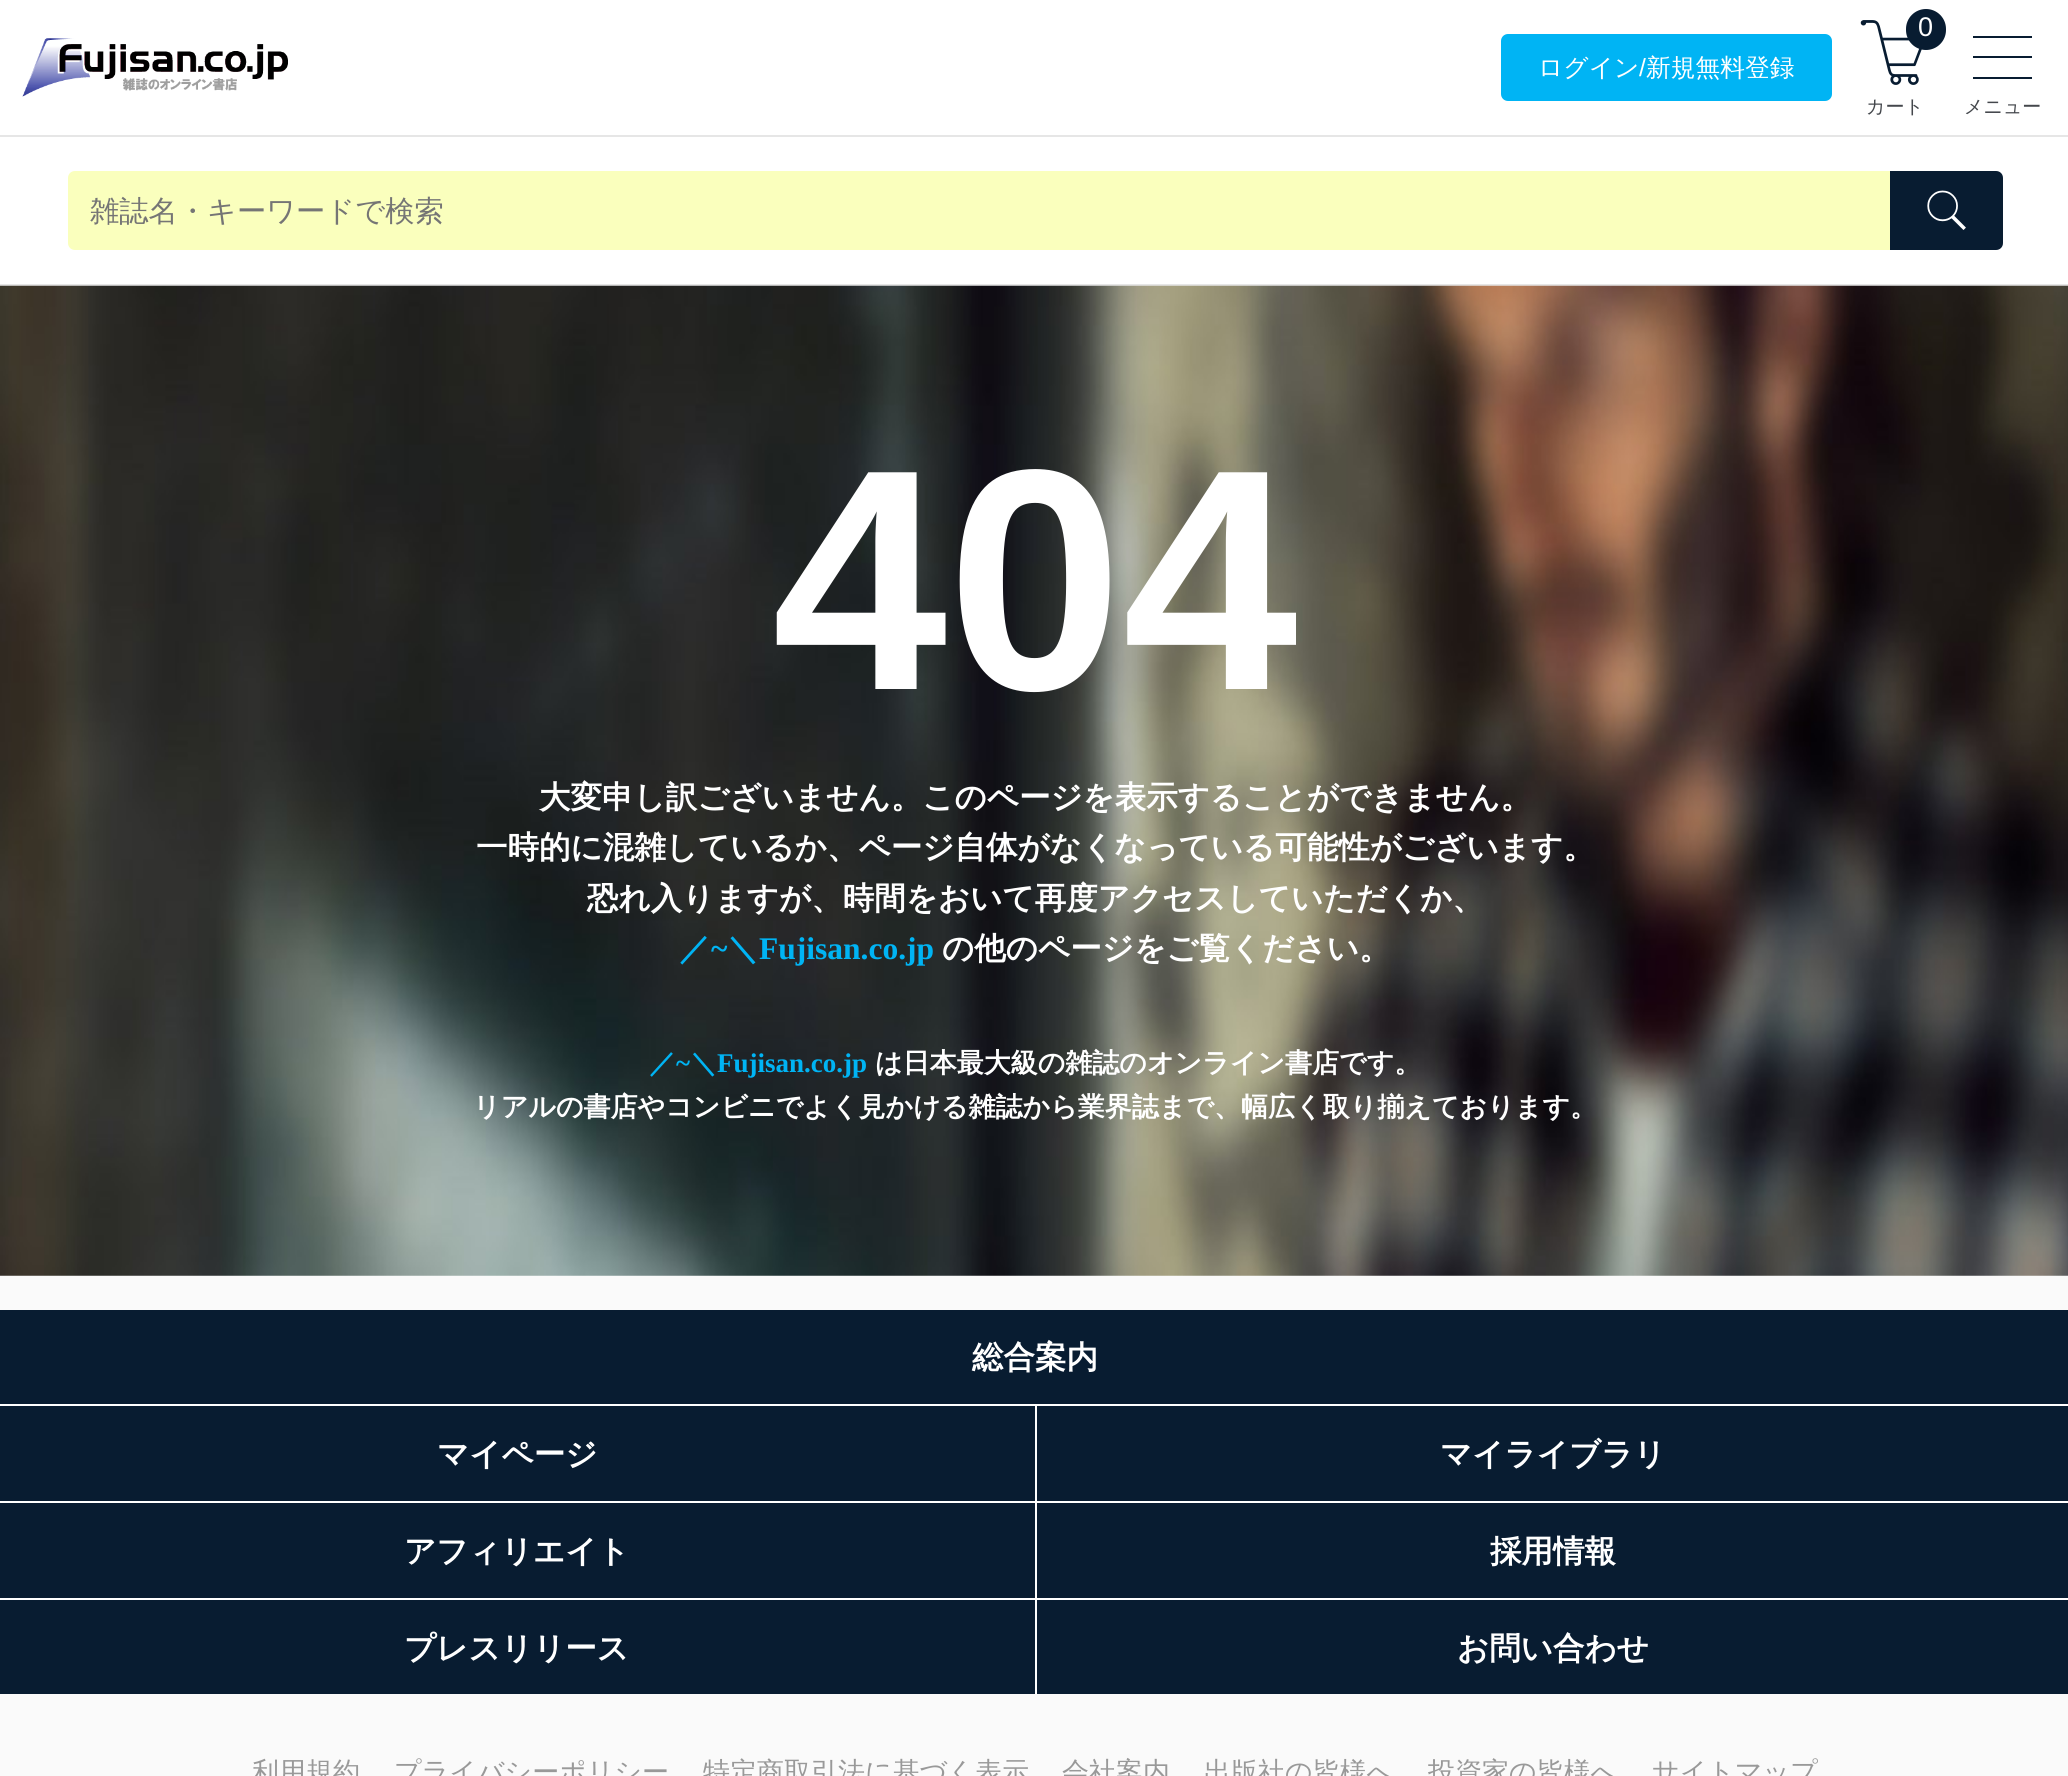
#include <cairo.h>
#include <math.h>
#include <stddef.h>


static void rgb(cairo_t *cr, int r, int g, int b)
{
	cairo_set_source_rgb(cr, r / 255.0, g / 255.0, b / 255.0);
}

static void face(cairo_t *cr, const char *family, double size, int italic, int bold)
{
	cairo_select_font_face(cr, family, italic ? CAIRO_FONT_SLANT_ITALIC : CAIRO_FONT_SLANT_NORMAL,
		bold ? CAIRO_FONT_WEIGHT_BOLD : CAIRO_FONT_WEIGHT_NORMAL);
	cairo_set_font_size(cr, size);
}

static void label(cairo_t *cr, double x, double y, const char *s)
{
	cairo_move_to(cr, x, y);
	cairo_show_text(cr, s);
}

static void rect(cairo_t *cr, double x, double y, double w, double h)
{
	cairo_rectangle(cr, x, y, w, h);
	cairo_fill(cr);
}

static void rrect(cairo_t *cr, double x, double y, double w, double h, double r)
{
	cairo_new_sub_path(cr);
	cairo_arc(cr, x + w - r, y + h - r, r, 0, M_PI / 2);
	cairo_arc(cr, x + r, y + h - r, r, M_PI / 2, M_PI);
	cairo_arc(cr, x + r, y + r, r, M_PI, 1.5 * M_PI);
	cairo_arc(cr, x + w - r, y + r, r, 1.5 * M_PI, 2 * M_PI);
	cairo_close_path(cr);
}

static void image(cairo_t *cr, const char *path, double x, double y, double w, double h)
{
	cairo_surface_t *image = cairo_image_surface_create_from_png(path);
	cairo_save(cr);
	cairo_set_source_surface(cr, image, x, y);
	cairo_rectangle(cr, x, y, w, h);
	cairo_fill(cr);
	cairo_restore(cr);
	cairo_surface_destroy(image);
}

static void draw(cairo_t *cr) {
	rgb(cr, 250, 250, 250);
	cairo_paint(cr);
	rgb(cr, 255, 255, 255);
	rect(cr, 0, 0, 2068, 135);
	image(cr, "image0.png", 22, 38, 266, 59);
	rgb(cr, 0, 180, 244);
	rrect(cr, 1501, 34, 331, 67, 7);
	cairo_fill(cr);
	face(cr, "WenQuanYi Zen Hei Medium", 24.75, 0, 0);
	rgb(cr, 255, 255, 255);
	label(cr, 1538, 76, "ログイン");
	face(cr, "Liberation Sans", 24.75, 0, 0);
	label(cr, 1639, 76, "/");
	face(cr, "WenQuanYi Zen Hei Medium", 24.75, 0, 0);
	label(cr, 1646, 76, "新規無料登録");
	image(cr, "image1.png", 1860, 20, 62, 65);
	rgb(cr, 8, 28, 49);
	rrect(cr, 1906, 9, 40, 41, 20);
	cairo_fill(cr);
	face(cr, "Liberation Sans", 27, 0, 0);
	rgb(cr, 255, 255, 255);
	label(cr, 1918, 36, "0");
	face(cr, "WenQuanYi Zen Hei Medium", 19, 0, 0);
	rgb(cr, 68, 71, 76);
	label(cr, 1866, 113, "カート");
	rgb(cr, 8, 28, 49);
	rect(cr, 1973, 36, 59, 2);
	rect(cr, 1973, 56, 59, 2);
	rect(cr, 1973, 77, 59, 2);
	rgb(cr, 68, 71, 76);
	label(cr, 1964, 113, "メニュー");
	rgb(cr, 255, 255, 255);
	rect(cr, 0, 137, 2068, 147);
	rgb(cr, 230, 230, 230);
	rect(cr, 0, 135, 2068, 2);
	rect(cr, 0, 284, 2068, 2);
	rgb(cr, 250, 255, 189);
	cairo_new_path(cr);
	cairo_move_to(cr, 75, 171);
	cairo_line_to(cr, 1890, 171);
	cairo_line_to(cr, 1890, 250);
	cairo_line_to(cr, 75, 250);
	cairo_curve_to(cr, 71, 250, 68, 247, 68, 243);
	cairo_line_to(cr, 68, 178);
	cairo_curve_to(cr, 68, 174, 71, 171, 75, 171);
	cairo_close_path(cr);
	cairo_fill(cr);
	face(cr, "WenQuanYi Zen Hei Medium", 29.25, 0, 0);
	rgb(cr, 117, 117, 117);
	label(cr, 90, 221, "雑誌名・キーワードで検索");
	rgb(cr, 8, 28, 49);
	cairo_new_path(cr);
	cairo_move_to(cr, 1890, 171);
	cairo_line_to(cr, 1996, 171);
	cairo_curve_to(cr, 2000, 171, 2003, 174, 2003, 178);
	cairo_line_to(cr, 2003, 243);
	cairo_curve_to(cr, 2003, 247, 2000, 250, 1996, 250);
	cairo_line_to(cr, 1890, 250);
	cairo_close_path(cr);
	cairo_fill(cr);
	image(cr, "image2.png", 1927, 190, 39, 40);
	image(cr, "image3.png", 0, 285, 2068, 991);
	face(cr, "Liberation Sans", 315, 0, 1);
	rgb(cr, 255, 255, 255);
	label(cr, 772, 689, "404");
	face(cr, "WenQuanYi Zen Hei", 31.5, 0, 1);
	label(cr, 539, 808, "大変申し訳ございません。このページを表示することができません。");
	label(cr, 476, 858, "一時的に混雑しているか、ページ自体がなくなっている可能性がございます。");
	label(cr, 587, 909, "恐れ入りますが、時間をおいて再度アクセスしていただくか、");
	rgb(cr, 0, 180, 244);
	label(cr, 679, 959, "／");
	face(cr, "Liberation Serif", 31.5, 0, 1);
	label(cr, 711, 959, "~");
	face(cr, "WenQuanYi Zen Hei", 31.5, 0, 1);
	label(cr, 727, 959, "＼");
	face(cr, "Liberation Serif", 31.5, 0, 1);
	label(cr, 759, 959, "Fujisan.co.jp");
	face(cr, "WenQuanYi Zen Hei", 31.5, 0, 1);
	rgb(cr, 255, 255, 255);
	label(cr, 942, 959, "の他のページをご覧ください。");
	face(cr, "WenQuanYi Zen Hei", 27, 0, 1);
	rgb(cr, 0, 180, 244);
	label(cr, 649, 1072, "／");
	face(cr, "Liberation Serif", 27, 0, 1);
	label(cr, 676, 1072, "~");
	face(cr, "WenQuanYi Zen Hei", 27, 0, 1);
	label(cr, 690, 1072, "＼");
	face(cr, "Liberation Serif", 27, 0, 1);
	label(cr, 717, 1072, "Fujisan.co.jp");
	face(cr, "WenQuanYi Zen Hei", 27, 0, 1);
	rgb(cr, 255, 255, 255);
	label(cr, 875, 1072, "は日本最大級の雑誌のオンライン書店です。");
	label(cr, 473, 1116, "リアルの書店やコンビニでよく見かける雑誌から業界誌まで、幅広く取り揃えております。");
	rect(cr, 0, 1404, 2068, 290);
	rgb(cr, 8, 28, 49);
	rect(cr, 0, 1310, 2068, 94);
	face(cr, "WenQuanYi Zen Hei", 31.5, 0, 1);
	rgb(cr, 255, 255, 255);
	label(cr, 972, 1368, "総合案内");
	rgb(cr, 8, 28, 49);
	rect(cr, 0, 1406, 1035, 95);
	rgb(cr, 255, 255, 255);
	label(cr, 437, 1465, "マイページ");
	rgb(cr, 8, 28, 49);
	rect(cr, 1037, 1406, 1031, 95);
	rgb(cr, 255, 255, 255);
	label(cr, 1440, 1465, "マイライブラリ");
	rgb(cr, 8, 28, 49);
	rect(cr, 0, 1503, 1035, 95);
	rgb(cr, 255, 255, 255);
	label(cr, 404, 1562, "アフィリエイト");
	rgb(cr, 8, 28, 49);
	rect(cr, 1037, 1503, 1031, 95);
	rgb(cr, 255, 255, 255);
	label(cr, 1490, 1562, "採用情報");
	rgb(cr, 8, 28, 49);
	rect(cr, 0, 1600, 1035, 94);
	rgb(cr, 255, 255, 255);
	label(cr, 404, 1659, "プレスリリース");
	rgb(cr, 8, 28, 49);
	rect(cr, 1037, 1600, 1031, 94);
	rgb(cr, 255, 255, 255);
	label(cr, 1457, 1659, "お問い合わせ");
	face(cr, "WenQuanYi Zen Hei Medium", 27, 0, 0);
	rgb(cr, 153, 153, 153);
	label(cr, 252, 1781, "利用規約");
	label(cr, 394, 1781, "プライバシーポリシー");
	label(cr, 703, 1781, "特定商取引法に基づく表示");
	label(cr, 1062, 1781, "会社案内");
	label(cr, 1204, 1781, "出版社の皆様へ");
	label(cr, 1428, 1781, "投資家の皆様へ");
	label(cr, 1652, 1781, "サイトマップ");
}

int main(void) {
	cairo_surface_t *surface = cairo_image_surface_create(CAIRO_FORMAT_RGB24, 2068, 1776);
	cairo_t *cr = cairo_create(surface);
	cairo_font_options_t *options = cairo_font_options_create();
	cairo_font_options_set_hint_metrics(options, CAIRO_HINT_METRICS_OFF);
	cairo_font_options_set_hint_style(options, CAIRO_HINT_STYLE_NONE);
	cairo_set_font_options(cr, options);
	cairo_set_miter_limit(cr, 4);
	draw(cr);
	cairo_surface_write_to_png(surface, "render.png");
	cairo_font_options_destroy(options);
	cairo_destroy(cr);
	cairo_surface_destroy(surface);
	return 0;
}
